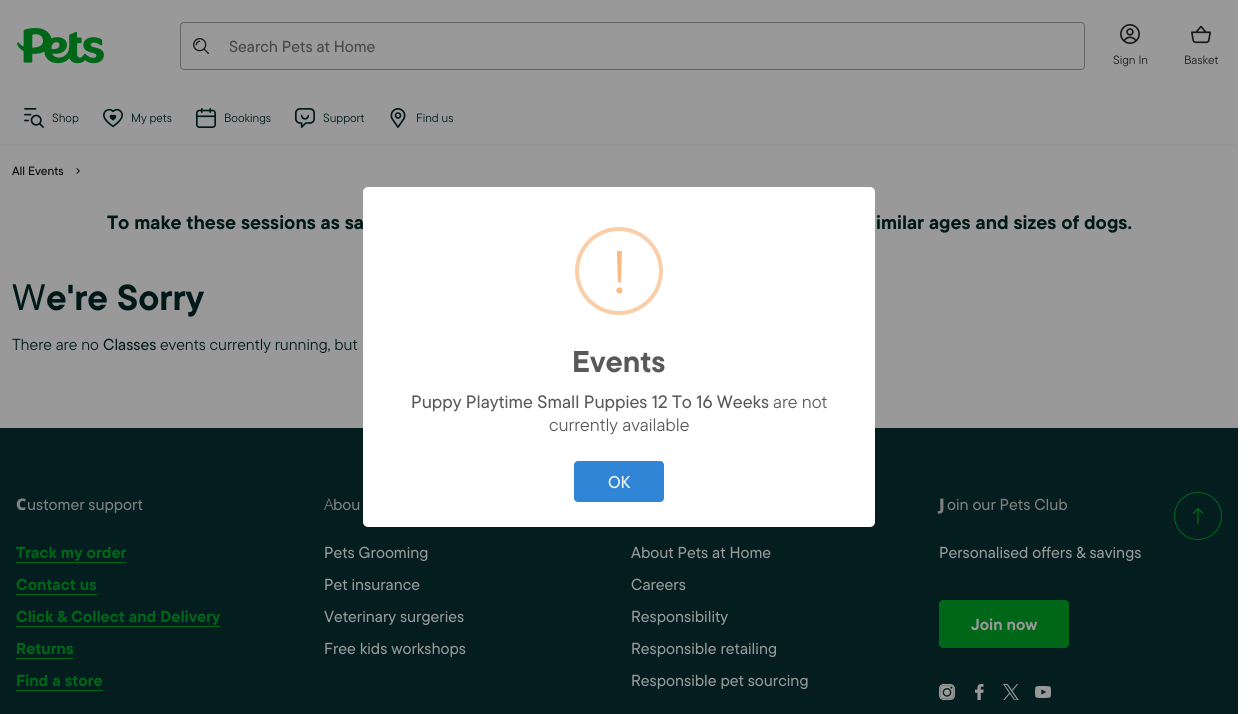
#include <cairo.h>
#include <math.h>
#include <stddef.h>


static void rgb(cairo_t *cr, int r, int g, int b)
{
	cairo_set_source_rgb(cr, r / 255.0, g / 255.0, b / 255.0);
}

static void face(cairo_t *cr, const char *family, double size, int italic, int bold)
{
	cairo_select_font_face(cr, family, italic ? CAIRO_FONT_SLANT_ITALIC : CAIRO_FONT_SLANT_NORMAL,
		bold ? CAIRO_FONT_WEIGHT_BOLD : CAIRO_FONT_WEIGHT_NORMAL);
	cairo_set_font_size(cr, size);
}

static void label(cairo_t *cr, double x, double y, const char *s)
{
	cairo_move_to(cr, x, y);
	cairo_show_text(cr, s);
}

static void rect(cairo_t *cr, double x, double y, double w, double h)
{
	cairo_rectangle(cr, x, y, w, h);
	cairo_fill(cr);
}

static void rrect(cairo_t *cr, double x, double y, double w, double h, double r)
{
	cairo_new_sub_path(cr);
	cairo_arc(cr, x + w - r, y + h - r, r, 0, M_PI / 2);
	cairo_arc(cr, x + r, y + h - r, r, M_PI / 2, M_PI);
	cairo_arc(cr, x + r, y + r, r, M_PI, 1.5 * M_PI);
	cairo_arc(cr, x + w - r, y + r, r, 1.5 * M_PI, 2 * M_PI);
	cairo_close_path(cr);
}

static void image(cairo_t *cr, const char *path, double x, double y, double w, double h)
{
	cairo_surface_t *image = cairo_image_surface_create_from_png(path);
	cairo_save(cr);
	cairo_set_source_surface(cr, image, x, y);
	cairo_rectangle(cr, x, y, w, h);
	cairo_fill(cr);
	cairo_restore(cr);
	cairo_surface_destroy(image);
}

static void draw(cairo_t *cr) {
	rgb(cr, 255, 255, 255);
	cairo_paint(cr);
	rgb(cr, 153, 153, 153);
	rect(cr, 0, 0, 1238, 428);
	rgb(cr, 149, 149, 149);
	rect(cr, 0, 144, 1238, 2);
	image(cr, "image0.png", 17, 28, 87, 36);
	rrect(cr, 180.5, 22.5, 904, 47, 3.5);
	rgb(cr, 101, 101, 101);
	cairo_set_line_width(cr, 1);
	cairo_stroke(cr);
	image(cr, "image1.png", 193, 38, 16, 16);
	face(cr, "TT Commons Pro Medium", 16, 0, 0);
	rgb(cr, 70, 70, 70);
	label(cr, 229, 52, "Search Pets at Home");
	image(cr, "image2.png", 1120, 24, 20, 20);
	face(cr, "TT Commons Pro", 12, 0, 0);
	rgb(cr, 25, 25, 25);
	label(cr, 1113, 64, "Sign In");
	image(cr, "image3.png", 1191, 25, 20, 19);
	label(cr, 1184, 64, "Basket");
	image(cr, "image4.png", 24, 108, 20, 20);
	rgb(cr, 0, 24, 24);
	label(cr, 52, 122, "Shop");
	image(cr, "image5.png", 103, 108, 20, 20);
	label(cr, 131, 122, "My pets");
	image(cr, "image6.png", 196, 108, 20, 20);
	label(cr, 224, 122, "Bookings");
	image(cr, "image7.png", 295, 108, 20, 20);
	label(cr, 323, 122, "Support");
	image(cr, "image8.png", 390, 108, 16, 20);
	label(cr, 416, 122, "Find us");
	face(cr, "TT Commons Pro Medium", 12, 0, 0);
	rgb(cr, 0, 0, 0);
	label(cr, 12, 175, "All Events");
	image(cr, "image9.png", 76, 168, 4, 6);
	face(cr, "TT Commons Pro", 19.25, 0, 1);
	rgb(cr, 0, 24, 24);
	label(cr, 107, 229, "To make these sessions as sa");
	label(cr, 876, 229, "imilar ages and sizes of dogs.");
	face(cr, "Noto Sans", 36, 0, 0);
	label(cr, 12, 310, "W");
	face(cr, "TT Commons Pro", 36, 0, 1);
	label(cr, 46, 310, "e're Sorry");
	face(cr, "TT Commons Pro", 16, 0, 0);
	label(cr, 12, 350, "There are no");
	face(cr, "TT Commons Pro Medium", 16, 0, 0);
	label(cr, 103, 350, "Classes");
	face(cr, "TT Commons Pro", 16, 0, 0);
	label(cr, 160, 350, "events currently running, but");
	rgb(cr, 4, 30, 32);
	rect(cr, 0, 428, 1238, 286);
	face(cr, "Noto Sans Black", 16, 0, 0);
	rgb(cr, 128, 128, 128);
	label(cr, 16, 510, "C");
	face(cr, "TT Commons Pro Medium", 16, 0, 0);
	label(cr, 27, 510, "ustomer support");
	face(cr, "TT Commons Pro", 16, 0, 1);
	rgb(cr, 0, 102, 24);
	label(cr, 16, 558, "Track my order");
	rect(cr, 16, 562, 110, 1);
	label(cr, 16, 590, "Contact us");
	rect(cr, 16, 594, 81, 1);
	label(cr, 16, 622, "Click & Collect and Delivery");
	rect(cr, 16, 626, 204, 1);
	label(cr, 16, 654, "Returns");
	rect(cr, 16, 658, 57, 1);
	label(cr, 16, 686, "Find a store");
	rect(cr, 16, 690, 87, 1);
	face(cr, "Noto Sans Light", 16, 0, 0);
	rgb(cr, 128, 128, 128);
	label(cr, 324, 510, "A");
	face(cr, "TT Commons Pro Medium", 16, 0, 0);
	label(cr, 333, 510, "bou");
	rgb(cr, 153, 153, 153);
	label(cr, 324, 558, "Pets Grooming");
	label(cr, 324, 590, "Pet insurance");
	label(cr, 324, 622, "Veterinary surgeries");
	label(cr, 324, 654, "Free kids workshops");
	label(cr, 631, 558, "About Pets at Home");
	label(cr, 631, 590, "Careers");
	label(cr, 631, 622, "Responsibility");
	label(cr, 631, 654, "Responsible retailing");
	label(cr, 631, 686, "Responsible pet sourcing");
	cairo_new_path(cr);
	cairo_arc(cr, 1198, 516, 23.5, 0, 2 * M_PI);
	rgb(cr, 0, 102, 24);
	cairo_stroke(cr);
	image(cr, "image10.png", 1192, 508, 12, 16);
	image(cr, "image11.png", 939, 684, 16, 16);
	image(cr, "image12.png", 975, 684, 9, 16);
	image(cr, "image13.png", 1003, 684, 16, 16);
	image(cr, "image14.png", 1035, 686, 16, 12);
	face(cr, "Noto Sans Black", 16, 0, 0);
	rgb(cr, 128, 128, 128);
	label(cr, 939, 510, "J");
	face(cr, "TT Commons Pro Medium", 16, 0, 0);
	label(cr, 947, 510, "oin our Pets Club");
	rgb(cr, 153, 153, 153);
	label(cr, 939, 558, "Personalised offers & savings");
	rgb(cr, 0, 102, 24);
	rrect(cr, 939, 600, 130, 48, 4);
	cairo_fill(cr);
	face(cr, "TT Commons Pro", 16, 0, 1);
	rgb(cr, 153, 153, 153);
	label(cr, 971, 630, "Join now");
	rgb(cr, 255, 255, 255);
	rrect(cr, 363, 187, 512, 340, 5);
	cairo_fill(cr);
	cairo_arc(cr, 619, 271, 42, 0, 2 * M_PI);
	rgb(cr, 250, 206, 168);
	cairo_set_line_width(cr, 4);
	cairo_stroke(cr);
	face(cr, "TT Commons Pro", 60, 0, 0);
	rgb(cr, 248, 187, 134);
	label(cr, 611, 293, "!");
	face(cr, "TT Commons Pro", 30, 0, 1);
	rgb(cr, 89, 89, 89);
	label(cr, 572, 372, "Events");
	face(cr, "TT Commons Pro Medium", 18, 0, 0);
	label(cr, 411, 408, "Puppy Playtime Small Puppies 12 To 16 Weeks");
	face(cr, "TT Commons Pro", 18, 0, 0);
	label(cr, 773, 408, "are not");
	label(cr, 549, 431, "currently available");
	rgb(cr, 48, 133, 214);
	rrect(cr, 574, 461, 90, 41, 4);
	cairo_fill(cr);
	face(cr, "TT Commons Pro Medium", 17, 0, 0);
	rgb(cr, 255, 255, 255);
	label(cr, 608, 488, "OK");
}

int main(void) {
	cairo_surface_t *surface = cairo_image_surface_create(CAIRO_FORMAT_RGB24, 1253, 714);
	cairo_t *cr = cairo_create(surface);
	cairo_font_options_t *options = cairo_font_options_create();
	cairo_font_options_set_hint_metrics(options, CAIRO_HINT_METRICS_OFF);
	cairo_font_options_set_hint_style(options, CAIRO_HINT_STYLE_NONE);
	cairo_set_font_options(cr, options);
	cairo_set_miter_limit(cr, 4);
	draw(cr);
	cairo_surface_write_to_png(surface, "render.png");
	cairo_font_options_destroy(options);
	cairo_destroy(cr);
	cairo_surface_destroy(surface);
	return 0;
}
